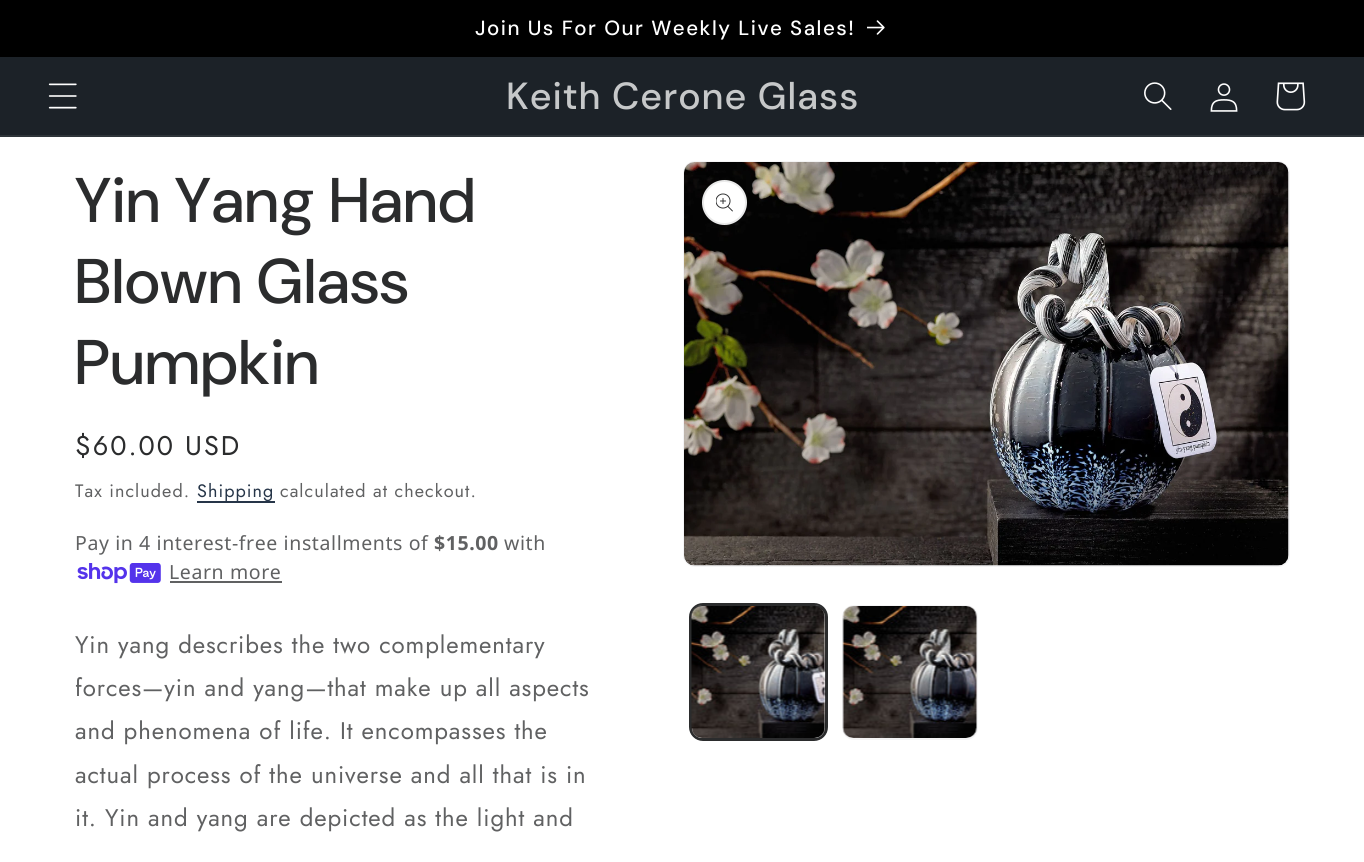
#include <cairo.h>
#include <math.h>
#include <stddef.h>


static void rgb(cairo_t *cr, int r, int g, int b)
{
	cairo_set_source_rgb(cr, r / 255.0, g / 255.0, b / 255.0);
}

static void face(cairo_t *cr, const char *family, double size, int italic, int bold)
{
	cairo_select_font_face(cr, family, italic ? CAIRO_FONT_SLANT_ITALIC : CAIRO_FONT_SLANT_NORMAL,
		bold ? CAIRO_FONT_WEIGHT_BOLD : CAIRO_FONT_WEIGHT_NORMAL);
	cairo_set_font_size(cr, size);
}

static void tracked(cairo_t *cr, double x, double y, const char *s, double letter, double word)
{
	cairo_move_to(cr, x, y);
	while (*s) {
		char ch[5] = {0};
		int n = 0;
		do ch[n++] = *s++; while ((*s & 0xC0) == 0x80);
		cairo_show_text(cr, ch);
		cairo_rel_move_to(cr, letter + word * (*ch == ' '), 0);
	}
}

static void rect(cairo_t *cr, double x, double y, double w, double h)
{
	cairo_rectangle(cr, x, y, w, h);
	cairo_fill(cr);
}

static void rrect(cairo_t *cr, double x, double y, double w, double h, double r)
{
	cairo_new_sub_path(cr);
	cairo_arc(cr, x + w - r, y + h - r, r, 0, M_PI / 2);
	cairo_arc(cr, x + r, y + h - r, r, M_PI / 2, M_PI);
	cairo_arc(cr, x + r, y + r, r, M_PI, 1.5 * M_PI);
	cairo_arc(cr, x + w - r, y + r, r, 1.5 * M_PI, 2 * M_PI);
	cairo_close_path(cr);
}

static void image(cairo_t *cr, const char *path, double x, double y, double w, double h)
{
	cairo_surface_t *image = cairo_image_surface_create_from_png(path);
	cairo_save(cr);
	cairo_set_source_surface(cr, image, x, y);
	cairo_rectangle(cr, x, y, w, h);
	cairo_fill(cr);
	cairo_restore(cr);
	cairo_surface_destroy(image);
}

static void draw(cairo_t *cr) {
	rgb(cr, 255, 255, 255);
	cairo_paint(cr);
	rgb(cr, 0, 0, 0);
	rect(cr, 0, 0, 1364, 57);
	face(cr, "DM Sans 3 Medium", 20.5, 0, 0);
	rgb(cr, 255, 255, 255);
	tracked(cr, 475, 35, "Join Us For Our Weekly Live Sales!", 1.5, 0);
	image(cr, "image0.png", 867, 20, 18, 15);
	rgb(cr, 28, 34, 40);
	rect(cr, 0, 57, 1364, 78);
	rgb(cr, 46, 52, 57);
	rect(cr, 0, 135, 1364, 2);
	image(cr, "image1.png", 48, 83, 29, 26);
	face(cr, "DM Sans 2 Medium", 37.75, 0, 0);
	rgb(cr, 198, 200, 201);
	tracked(cr, 506, 109, "Keith Cerone Glass", 1, 0);
	image(cr, "image2.png", 1144, 82, 28, 28);
	image(cr, "image3.png", 1210, 83, 28, 29);
	image(cr, "image4.png", 1276, 82, 30, 29);
	face(cr, "DM Sans Medium", 63, 0, 0);
	rgb(cr, 43, 44, 45);
	tracked(cr, 75, 222, "Yin Yang Hand", 1, 0);
	tracked(cr, 75, 303, "Blown Glass", 1, 0);
	tracked(cr, 75, 384, "Pumpkin", 1, 0);
	face(cr, "Jost", 27, 0, 0);
	tracked(cr, 75, 455, "$60.00 USD", 2, 0);
	face(cr, "Jost", 18, 0, 0);
	rgb(cr, 96, 97, 98);
	tracked(cr, 75, 497, "Tax included.", 1.05, 0);
	rgb(cr, 38, 53, 72);
	rect(cr, 197, 501, 78, 2);
	tracked(cr, 197, 497, "Shipping", 1.05, 0);
	rgb(cr, 96, 97, 98);
	tracked(cr, 280, 497, "calculated at checkout.", 1.05, 0);
	face(cr, "Noto Sans", 19.5, 0, 0);
	tracked(cr, 75, 550, "Pay in 4 interest-free installments of", 0.6, 0);
	face(cr, "Noto Sans", 19.5, 0, 1);
	tracked(cr, 434, 550, "$15.00", 0.6, 0);
	face(cr, "Noto Sans", 19.5, 0, 0);
	tracked(cr, 504, 550, "with", 0.6, 0);
	image(cr, "image5.png", 77, 563, 84, 21);
	tracked(cr, 169, 579, "Learn more", 0.6, 0);
	rect(cr, 170, 581, 112, 2);
	face(cr, "Jost", 24, 0, 0);
	tracked(cr, 75, 653, "Yin yang describes the two complementary", 0.9, 0);
	tracked(cr, 75, 696, "forces—yin and yang—that make up all aspects", 0.9, 0);
	tracked(cr, 75, 739, "and phenomena of life. It encompasses the", 0.9, 0);
	tracked(cr, 75, 783, "actual process of the universe and all that is in", 0.9, 0);
	tracked(cr, 75, 826, "it. Yin and yang are depicted as the light and", 0.9, 0);
	rrect(cr, 684, 162, 605, 404, 11);
	rgb(cr, 244, 244, 245);
	cairo_stroke(cr);
	image(cr, "image6.png", 684, 162, 605, 404);
	rgb(cr, 255, 255, 255);
	cairo_arc(cr, 724.5, 202.5, 22.5, 0, 2 * M_PI);
	cairo_fill(cr);
	cairo_arc(cr, 724.5, 202.5, 21.5, 0, 2 * M_PI);
	cairo_set_source_rgba(cr, 0.169, 0.173, 0.176, 0.1);
	cairo_stroke(cr);
	image(cr, "image7.png", 716, 193, 17, 19);
	rrect(cr, 690, 604, 137, 136, 13);
	rgb(cr, 43, 44, 45);
	cairo_stroke(cr);
	rrect(cr, 691, 606, 135, 133, 11);
	cairo_stroke(cr);
	image(cr, "image8.png", 691, 606, 135, 132);
	rrect(cr, 843, 606, 134, 133, 11);
	rgb(cr, 244, 244, 245);
	cairo_stroke(cr);
	image(cr, "image9.png", 842, 606, 135, 132);
}

int main(void) {
	cairo_surface_t *surface = cairo_image_surface_create(CAIRO_FORMAT_RGB24, 1364, 862);
	cairo_t *cr = cairo_create(surface);
	cairo_font_options_t *options = cairo_font_options_create();
	cairo_font_options_set_hint_metrics(options, CAIRO_HINT_METRICS_OFF);
	cairo_font_options_set_hint_style(options, CAIRO_HINT_STYLE_NONE);
	cairo_set_font_options(cr, options);
	cairo_set_miter_limit(cr, 4);
	draw(cr);
	cairo_surface_write_to_png(surface, "render.png");
	cairo_font_options_destroy(options);
	cairo_destroy(cr);
	cairo_surface_destroy(surface);
	return 0;
}
